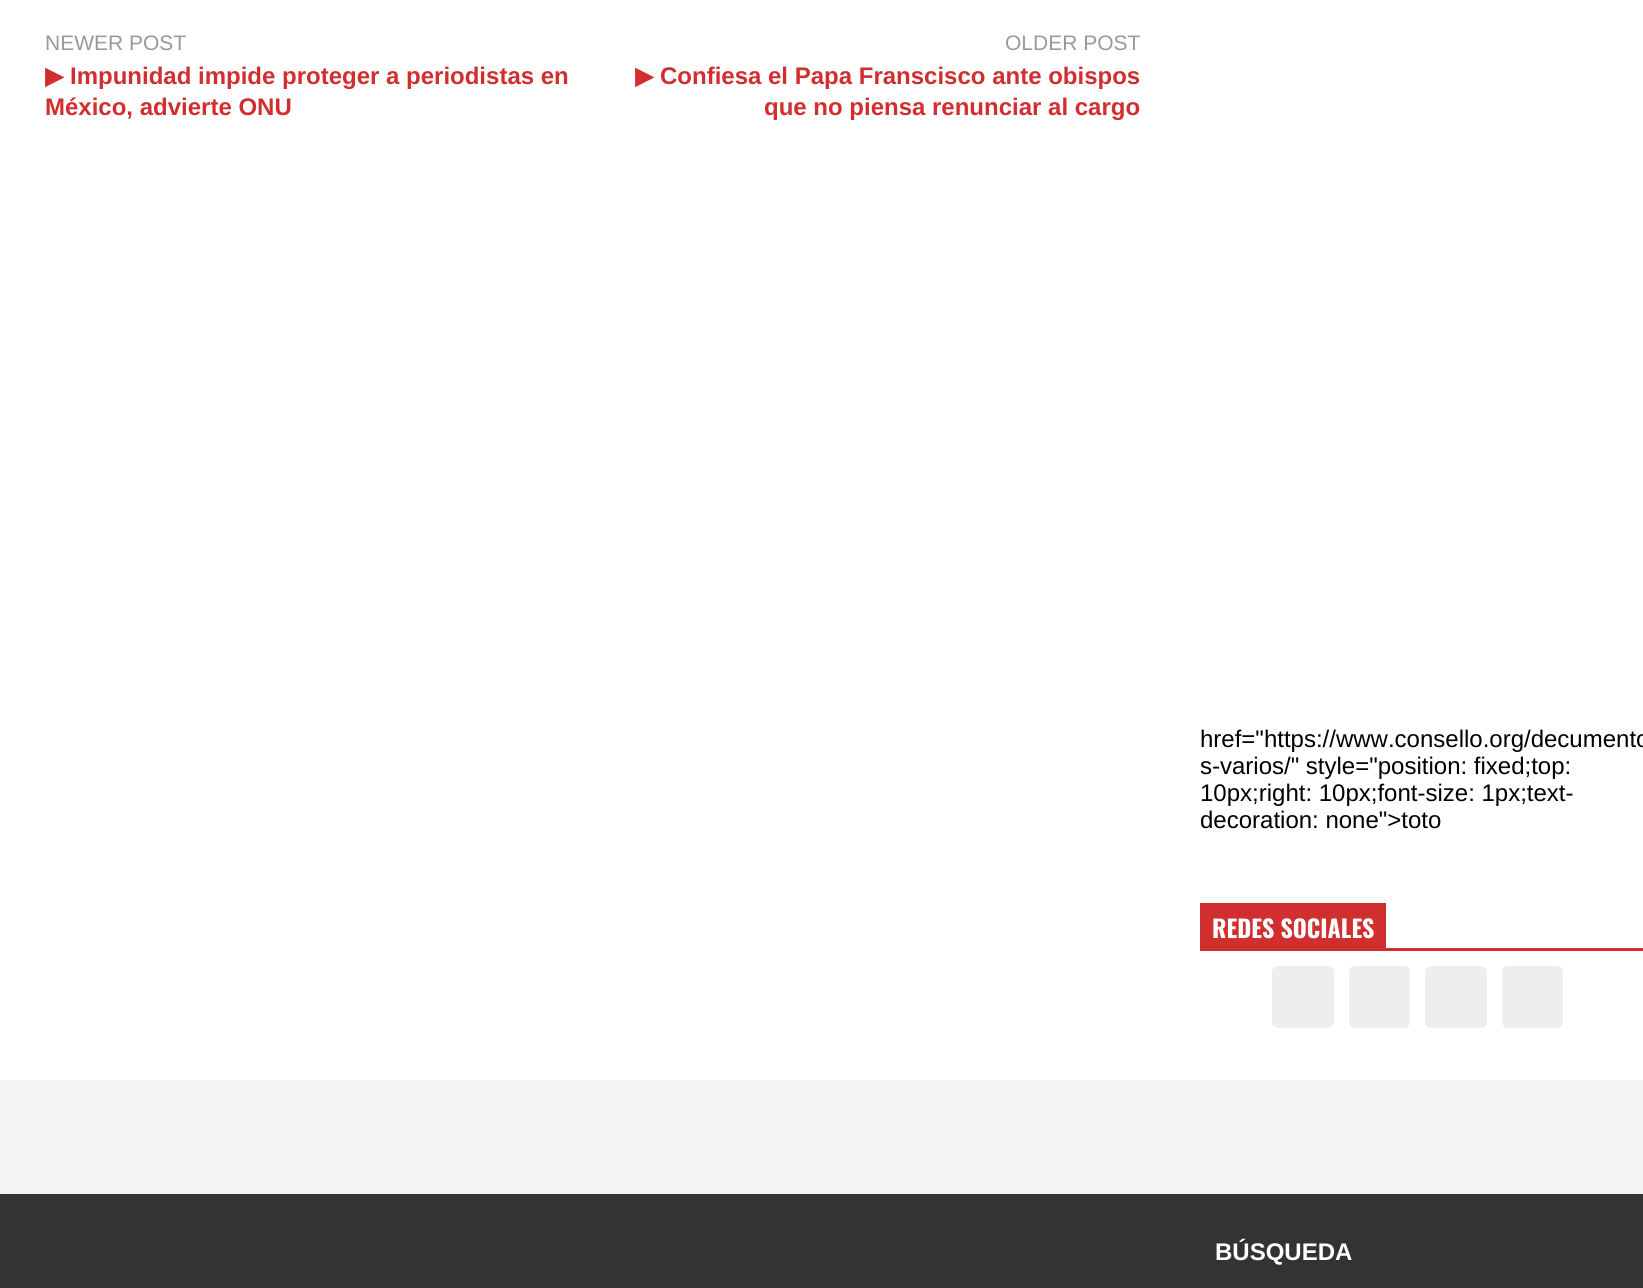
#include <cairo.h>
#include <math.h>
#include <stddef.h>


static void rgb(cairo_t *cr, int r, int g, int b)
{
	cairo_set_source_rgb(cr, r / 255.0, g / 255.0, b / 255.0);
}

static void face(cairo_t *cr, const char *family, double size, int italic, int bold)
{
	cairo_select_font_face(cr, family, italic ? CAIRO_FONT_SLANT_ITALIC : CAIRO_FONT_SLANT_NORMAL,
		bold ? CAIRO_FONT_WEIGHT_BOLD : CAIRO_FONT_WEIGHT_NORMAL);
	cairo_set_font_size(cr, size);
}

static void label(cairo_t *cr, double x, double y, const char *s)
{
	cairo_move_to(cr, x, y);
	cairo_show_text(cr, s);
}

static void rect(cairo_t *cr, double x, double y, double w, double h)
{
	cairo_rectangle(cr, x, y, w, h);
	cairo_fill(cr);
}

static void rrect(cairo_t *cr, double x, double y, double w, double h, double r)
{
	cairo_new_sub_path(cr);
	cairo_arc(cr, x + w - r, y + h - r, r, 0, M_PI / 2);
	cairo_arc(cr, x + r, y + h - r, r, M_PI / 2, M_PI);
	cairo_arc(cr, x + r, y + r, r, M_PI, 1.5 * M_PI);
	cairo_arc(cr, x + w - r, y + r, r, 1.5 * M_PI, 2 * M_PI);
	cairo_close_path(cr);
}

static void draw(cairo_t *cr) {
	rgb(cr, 255, 255, 255);
	cairo_paint(cr);
	face(cr, "Liberation Sans", 21, 0, 0);
	rgb(cr, 153, 153, 153);
	label(cr, 45, 50, "NEWER POST");
	face(cr, "DejaVu Sans", 24, 0, 1);
	rgb(cr, 209, 47, 47);
	label(cr, 45, 84, "▶");
	face(cr, "Liberation Sans", 24, 0, 1);
	label(cr, 70, 84, "Impunidad impide proteger a periodistas en");
	label(cr, 45, 115, "México, advierte ONU");
	face(cr, "Liberation Sans", 21, 0, 0);
	rgb(cr, 153, 153, 153);
	label(cr, 1005, 50, "OLDER POST");
	face(cr, "DejaVu Sans", 24, 0, 1);
	rgb(cr, 209, 47, 47);
	label(cr, 635, 84, "▶");
	face(cr, "Liberation Sans", 24, 0, 1);
	label(cr, 660, 84, "Confiesa el Papa Franscisco ante obispos");
	label(cr, 764, 115, "que no piensa renunciar al cargo");
	face(cr, "Liberation Sans", 24, 0, 0);
	rgb(cr, 0, 0, 0);
	label(cr, 1200, 747, "href=\"https://www.consello.org/decumento");
	label(cr, 1200, 774, "s-varios/\" style=\"position: fixed;top:");
	label(cr, 1200, 801, "10px;right: 10px;font-size: 1px;text-");
	label(cr, 1200, 828, "decoration: none\">toto");
	rgb(cr, 209, 47, 47);
	rect(cr, 1386, 948, 257, 3);
	rect(cr, 1200, 903, 186, 48);
	face(cr, "Oswald", 24, 0, 1);
	rgb(cr, 255, 255, 255);
	label(cr, 1212, 938, "REDES SOCIALES");
	rgb(cr, 238, 238, 238);
	rrect(cr, 1274.5, 968.5, 57, 57, 3.5);
	cairo_fill_preserve(cr);
	cairo_set_line_width(cr, 5);
	cairo_stroke(cr);
	rrect(cr, 1351.5, 968.5, 56, 57, 3.5);
	cairo_fill_preserve(cr);
	cairo_stroke(cr);
	rrect(cr, 1427.5, 968.5, 57, 57, 3.5);
	cairo_fill_preserve(cr);
	cairo_stroke(cr);
	rrect(cr, 1504.5, 968.5, 56, 57, 3.5);
	cairo_fill_preserve(cr);
	cairo_stroke(cr);
	rgb(cr, 244, 244, 244);
	rect(cr, 0, 1080, 1643, 114);
	rgb(cr, 51, 51, 51);
	rect(cr, 0, 1194, 1643, 94);
	face(cr, "Liberation Sans", 24, 0, 1);
	rgb(cr, 255, 255, 255);
	label(cr, 1215, 1260, "BÚSQUEDA");
}

int main(void) {
	cairo_surface_t *surface = cairo_image_surface_create(CAIRO_FORMAT_RGB24, 1643, 1288);
	cairo_t *cr = cairo_create(surface);
	cairo_font_options_t *options = cairo_font_options_create();
	cairo_font_options_set_hint_metrics(options, CAIRO_HINT_METRICS_OFF);
	cairo_font_options_set_hint_style(options, CAIRO_HINT_STYLE_NONE);
	cairo_set_font_options(cr, options);
	cairo_set_miter_limit(cr, 4);
	draw(cr);
	cairo_surface_write_to_png(surface, "render.png");
	cairo_font_options_destroy(options);
	cairo_destroy(cr);
	cairo_surface_destroy(surface);
	return 0;
}
